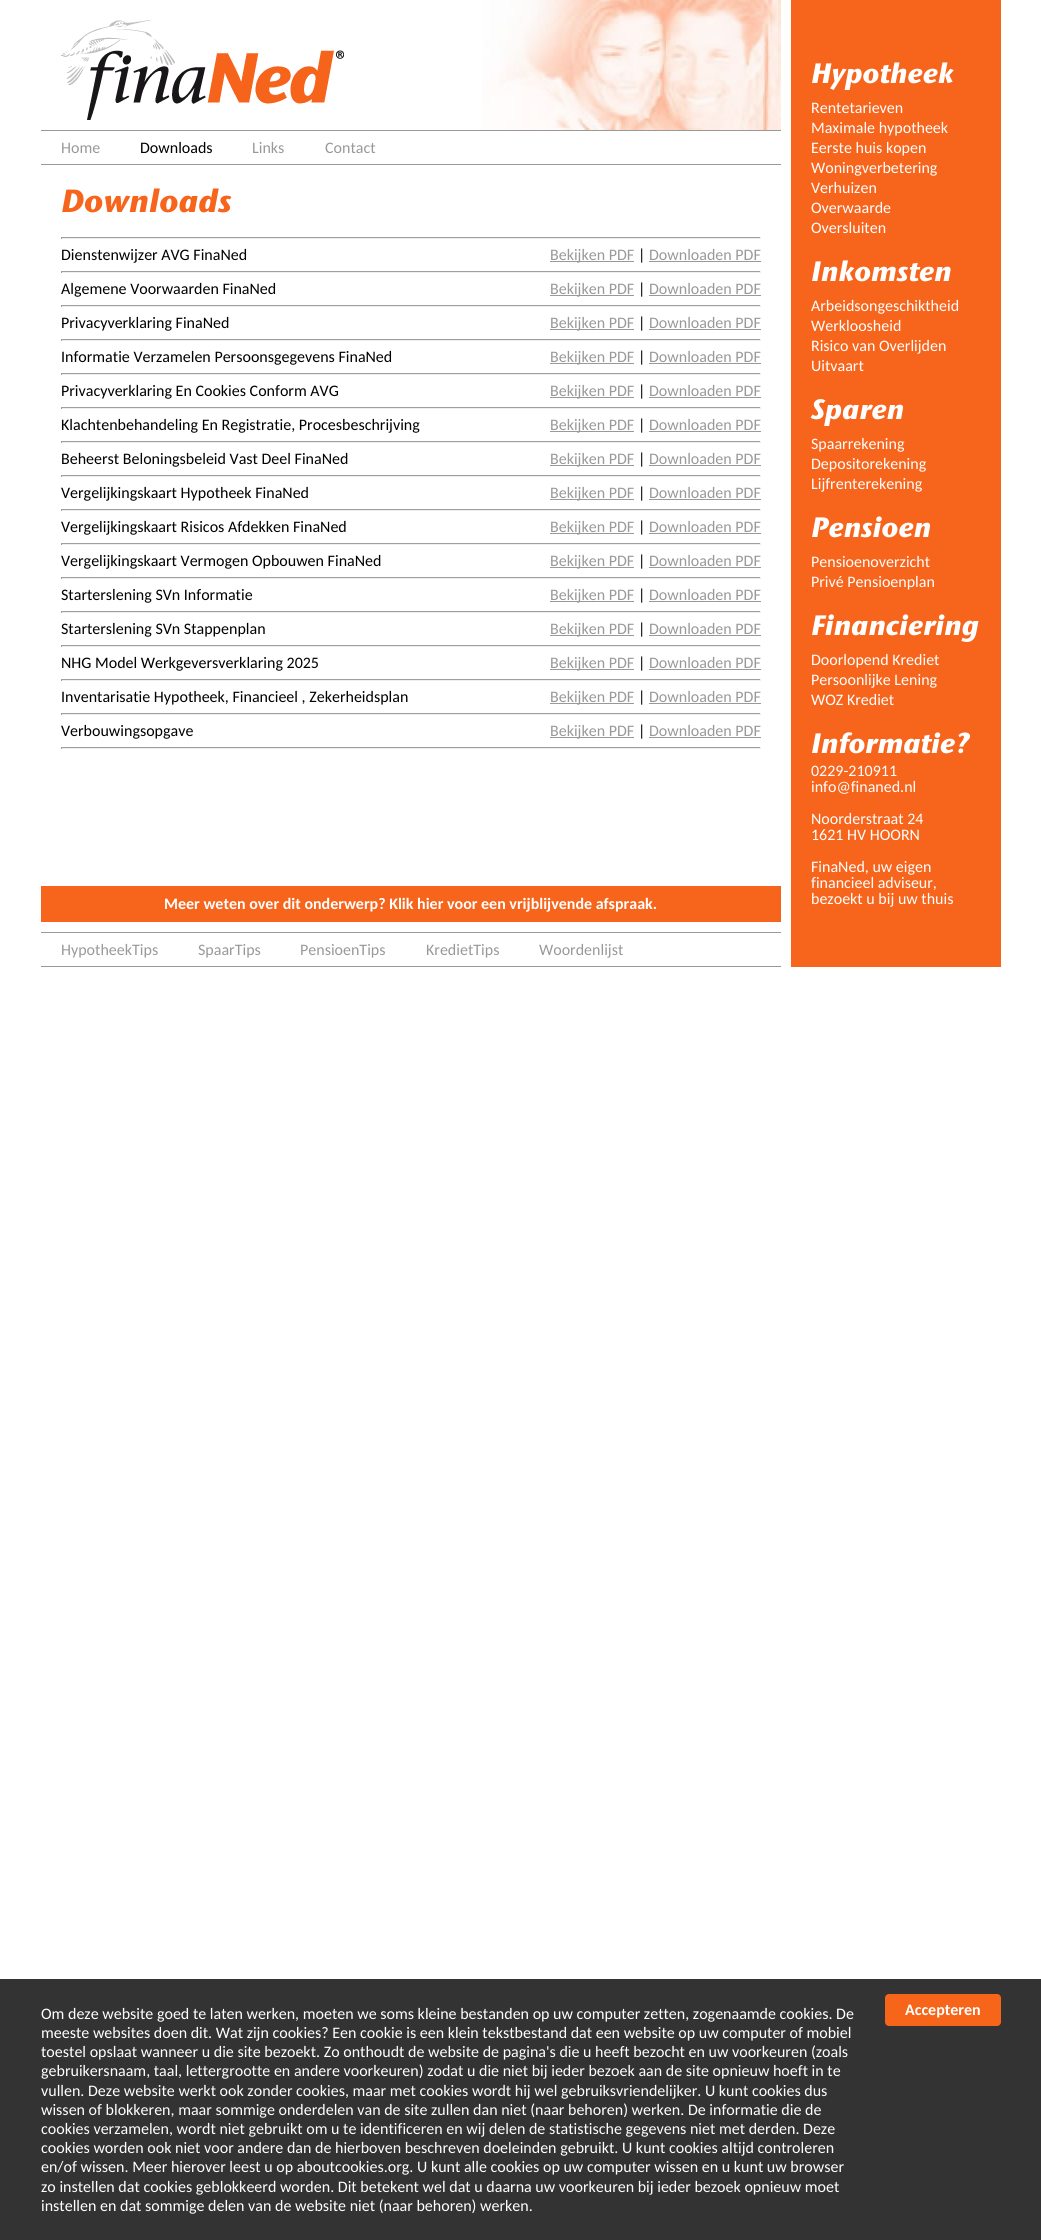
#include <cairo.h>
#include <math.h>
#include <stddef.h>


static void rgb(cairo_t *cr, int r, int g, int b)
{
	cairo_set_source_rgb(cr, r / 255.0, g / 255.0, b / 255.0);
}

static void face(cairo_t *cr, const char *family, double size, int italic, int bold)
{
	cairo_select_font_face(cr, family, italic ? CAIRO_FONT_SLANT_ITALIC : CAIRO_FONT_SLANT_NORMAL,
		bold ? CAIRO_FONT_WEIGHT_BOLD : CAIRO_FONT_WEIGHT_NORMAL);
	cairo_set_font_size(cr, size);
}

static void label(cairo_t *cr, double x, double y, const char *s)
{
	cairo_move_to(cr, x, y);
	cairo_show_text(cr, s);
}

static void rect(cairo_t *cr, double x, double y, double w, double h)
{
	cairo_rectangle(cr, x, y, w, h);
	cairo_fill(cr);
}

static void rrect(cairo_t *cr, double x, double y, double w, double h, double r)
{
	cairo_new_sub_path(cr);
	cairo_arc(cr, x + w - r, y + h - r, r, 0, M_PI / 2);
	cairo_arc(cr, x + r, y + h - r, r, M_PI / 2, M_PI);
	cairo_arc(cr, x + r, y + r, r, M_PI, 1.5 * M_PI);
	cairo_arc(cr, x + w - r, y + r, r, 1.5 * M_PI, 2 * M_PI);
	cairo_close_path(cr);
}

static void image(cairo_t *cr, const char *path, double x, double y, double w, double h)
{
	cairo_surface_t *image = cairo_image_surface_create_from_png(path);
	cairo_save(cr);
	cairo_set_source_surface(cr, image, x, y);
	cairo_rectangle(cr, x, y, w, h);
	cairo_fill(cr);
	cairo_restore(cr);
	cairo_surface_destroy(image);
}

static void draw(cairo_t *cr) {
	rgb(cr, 255, 255, 255);
	cairo_paint(cr);
	image(cr, "image0.png", 482, 0, 299, 130);
	image(cr, "image1.png", 61, 20, 283, 100);
	rgb(cr, 153, 153, 153);
	rect(cr, 41, 130, 740, 1);
	rect(cr, 41, 164, 740, 1);
	face(cr, "Carlito", 16, 0, 0);
	label(cr, 61, 153, "Home");
	rgb(cr, 0, 0, 0);
	label(cr, 140, 153, "Downloads");
	rgb(cr, 153, 153, 153);
	label(cr, 252, 153, "Links");
	label(cr, 325, 153, "Contact");
	face(cr, "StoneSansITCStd", 32, 1, 1);
	rgb(cr, 247, 100, 27);
	label(cr, 61, 212, "Downloads");
	rgb(cr, 159, 159, 159);
	rect(cr, 61, 237, 700, 1);
	rgb(cr, 238, 238, 238);
	rect(cr, 760, 237, 1, 2);
	rect(cr, 61, 238, 700, 1);
	rgb(cr, 159, 159, 159);
	rect(cr, 61, 237, 1, 2);
	face(cr, "Carlito", 16, 0, 0);
	rgb(cr, 0, 0, 0);
	label(cr, 61, 260, "Dienstenwijzer AVG FinaNed");
	rgb(cr, 153, 153, 153);
	rect(cr, 550, 261, 84, 1);
	label(cr, 550, 260, "Bekijken PDF");
	rgb(cr, 0, 0, 0);
	label(cr, 638, 260, "|");
	rgb(cr, 153, 153, 153);
	label(cr, 649, 260, "Downloaden PDF");
	rect(cr, 649, 261, 112, 1);
	rgb(cr, 159, 159, 159);
	rect(cr, 61, 271, 700, 1);
	rgb(cr, 238, 238, 238);
	rect(cr, 760, 271, 1, 2);
	rect(cr, 61, 272, 700, 1);
	rgb(cr, 159, 159, 159);
	rect(cr, 61, 271, 1, 2);
	rgb(cr, 0, 0, 0);
	label(cr, 61, 294, "Algemene Voorwaarden FinaNed");
	rgb(cr, 153, 153, 153);
	rect(cr, 550, 295, 84, 1);
	label(cr, 550, 294, "Bekijken PDF");
	rgb(cr, 0, 0, 0);
	label(cr, 638, 294, "|");
	rgb(cr, 153, 153, 153);
	label(cr, 649, 294, "Downloaden PDF");
	rect(cr, 649, 295, 112, 1);
	rgb(cr, 159, 159, 159);
	rect(cr, 61, 305, 700, 1);
	rgb(cr, 238, 238, 238);
	rect(cr, 760, 305, 1, 2);
	rect(cr, 61, 306, 700, 1);
	rgb(cr, 159, 159, 159);
	rect(cr, 61, 305, 1, 2);
	rgb(cr, 0, 0, 0);
	label(cr, 61, 328, "Privacyverklaring FinaNed");
	rgb(cr, 153, 153, 153);
	rect(cr, 550, 329, 84, 1);
	label(cr, 550, 328, "Bekijken PDF");
	rgb(cr, 0, 0, 0);
	label(cr, 638, 328, "|");
	rgb(cr, 153, 153, 153);
	label(cr, 649, 328, "Downloaden PDF");
	rect(cr, 649, 329, 112, 1);
	rgb(cr, 159, 159, 159);
	rect(cr, 61, 339, 700, 1);
	rgb(cr, 238, 238, 238);
	rect(cr, 760, 339, 1, 2);
	rect(cr, 61, 340, 700, 1);
	rgb(cr, 159, 159, 159);
	rect(cr, 61, 339, 1, 2);
	rgb(cr, 0, 0, 0);
	label(cr, 61, 362, "Informatie Verzamelen Persoonsgegevens FinaNed");
	rgb(cr, 153, 153, 153);
	rect(cr, 550, 363, 84, 1);
	label(cr, 550, 362, "Bekijken PDF");
	rgb(cr, 0, 0, 0);
	label(cr, 638, 362, "|");
	rgb(cr, 153, 153, 153);
	label(cr, 649, 362, "Downloaden PDF");
	rect(cr, 649, 363, 112, 1);
	rgb(cr, 159, 159, 159);
	rect(cr, 61, 373, 700, 1);
	rgb(cr, 238, 238, 238);
	rect(cr, 760, 373, 1, 2);
	rect(cr, 61, 374, 700, 1);
	rgb(cr, 159, 159, 159);
	rect(cr, 61, 373, 1, 2);
	rgb(cr, 0, 0, 0);
	label(cr, 61, 396, "Privacyverklaring En Cookies Conform AVG");
	rgb(cr, 153, 153, 153);
	rect(cr, 550, 397, 84, 1);
	label(cr, 550, 396, "Bekijken PDF");
	rgb(cr, 0, 0, 0);
	label(cr, 638, 396, "|");
	rgb(cr, 153, 153, 153);
	label(cr, 649, 396, "Downloaden PDF");
	rect(cr, 649, 397, 112, 1);
	rgb(cr, 159, 159, 159);
	rect(cr, 61, 407, 700, 1);
	rgb(cr, 238, 238, 238);
	rect(cr, 760, 407, 1, 2);
	rect(cr, 61, 408, 700, 1);
	rgb(cr, 159, 159, 159);
	rect(cr, 61, 407, 1, 2);
	rgb(cr, 0, 0, 0);
	label(cr, 61, 430, "Klachtenbehandeling En Registratie, Procesbeschrijving");
	rgb(cr, 153, 153, 153);
	rect(cr, 550, 431, 84, 1);
	label(cr, 550, 430, "Bekijken PDF");
	rgb(cr, 0, 0, 0);
	label(cr, 638, 430, "|");
	rgb(cr, 153, 153, 153);
	label(cr, 649, 430, "Downloaden PDF");
	rect(cr, 649, 431, 112, 1);
	rgb(cr, 159, 159, 159);
	rect(cr, 61, 441, 700, 1);
	rgb(cr, 238, 238, 238);
	rect(cr, 760, 441, 1, 2);
	rect(cr, 61, 442, 700, 1);
	rgb(cr, 159, 159, 159);
	rect(cr, 61, 441, 1, 2);
	rgb(cr, 0, 0, 0);
	label(cr, 61, 464, "Beheerst Beloningsbeleid Vast Deel FinaNed");
	rgb(cr, 153, 153, 153);
	rect(cr, 550, 465, 84, 1);
	label(cr, 550, 464, "Bekijken PDF");
	rgb(cr, 0, 0, 0);
	label(cr, 638, 464, "|");
	rgb(cr, 153, 153, 153);
	label(cr, 649, 464, "Downloaden PDF");
	rect(cr, 649, 465, 112, 1);
	rgb(cr, 159, 159, 159);
	rect(cr, 61, 475, 700, 1);
	rgb(cr, 238, 238, 238);
	rect(cr, 760, 475, 1, 2);
	rect(cr, 61, 476, 700, 1);
	rgb(cr, 159, 159, 159);
	rect(cr, 61, 475, 1, 2);
	rgb(cr, 0, 0, 0);
	label(cr, 61, 498, "Vergelijkingskaart Hypotheek FinaNed");
	rgb(cr, 153, 153, 153);
	rect(cr, 550, 499, 84, 1);
	label(cr, 550, 498, "Bekijken PDF");
	rgb(cr, 0, 0, 0);
	label(cr, 638, 498, "|");
	rgb(cr, 153, 153, 153);
	label(cr, 649, 498, "Downloaden PDF");
	rect(cr, 649, 499, 112, 1);
	rgb(cr, 159, 159, 159);
	rect(cr, 61, 509, 700, 1);
	rgb(cr, 238, 238, 238);
	rect(cr, 760, 509, 1, 2);
	rect(cr, 61, 510, 700, 1);
	rgb(cr, 159, 159, 159);
	rect(cr, 61, 509, 1, 2);
	rgb(cr, 0, 0, 0);
	label(cr, 61, 532, "Vergelijkingskaart Risicos Afdekken FinaNed");
	rgb(cr, 153, 153, 153);
	rect(cr, 550, 533, 84, 1);
	label(cr, 550, 532, "Bekijken PDF");
	rgb(cr, 0, 0, 0);
	label(cr, 638, 532, "|");
	rgb(cr, 153, 153, 153);
	label(cr, 649, 532, "Downloaden PDF");
	rect(cr, 649, 533, 112, 1);
	rgb(cr, 159, 159, 159);
	rect(cr, 61, 543, 700, 1);
	rgb(cr, 238, 238, 238);
	rect(cr, 760, 543, 1, 2);
	rect(cr, 61, 544, 700, 1);
	rgb(cr, 159, 159, 159);
	rect(cr, 61, 543, 1, 2);
	rgb(cr, 0, 0, 0);
	label(cr, 61, 566, "Vergelijkingskaart Vermogen Opbouwen FinaNed");
	rgb(cr, 153, 153, 153);
	rect(cr, 550, 567, 84, 1);
	label(cr, 550, 566, "Bekijken PDF");
	rgb(cr, 0, 0, 0);
	label(cr, 638, 566, "|");
	rgb(cr, 153, 153, 153);
	label(cr, 649, 566, "Downloaden PDF");
	rect(cr, 649, 567, 112, 1);
	rgb(cr, 159, 159, 159);
	rect(cr, 61, 577, 700, 1);
	rgb(cr, 238, 238, 238);
	rect(cr, 760, 577, 1, 2);
	rect(cr, 61, 578, 700, 1);
	rgb(cr, 159, 159, 159);
	rect(cr, 61, 577, 1, 2);
	rgb(cr, 0, 0, 0);
	label(cr, 61, 600, "Starterslening SVn Informatie");
	rgb(cr, 153, 153, 153);
	rect(cr, 550, 601, 84, 1);
	label(cr, 550, 600, "Bekijken PDF");
	rgb(cr, 0, 0, 0);
	label(cr, 638, 600, "|");
	rgb(cr, 153, 153, 153);
	label(cr, 649, 600, "Downloaden PDF");
	rect(cr, 649, 601, 112, 1);
	rgb(cr, 159, 159, 159);
	rect(cr, 61, 611, 700, 1);
	rgb(cr, 238, 238, 238);
	rect(cr, 760, 611, 1, 2);
	rect(cr, 61, 612, 700, 1);
	rgb(cr, 159, 159, 159);
	rect(cr, 61, 611, 1, 2);
	rgb(cr, 0, 0, 0);
	label(cr, 61, 634, "Starterslening SVn Stappenplan");
	rgb(cr, 153, 153, 153);
	rect(cr, 550, 635, 84, 1);
	label(cr, 550, 634, "Bekijken PDF");
	rgb(cr, 0, 0, 0);
	label(cr, 638, 634, "|");
	rgb(cr, 153, 153, 153);
	label(cr, 649, 634, "Downloaden PDF");
	rect(cr, 649, 635, 112, 1);
	rgb(cr, 159, 159, 159);
	rect(cr, 61, 645, 700, 1);
	rgb(cr, 238, 238, 238);
	rect(cr, 760, 645, 1, 2);
	rect(cr, 61, 646, 700, 1);
	rgb(cr, 159, 159, 159);
	rect(cr, 61, 645, 1, 2);
	rgb(cr, 0, 0, 0);
	label(cr, 61, 668, "NHG Model Werkgeversverklaring 2025");
	rgb(cr, 153, 153, 153);
	rect(cr, 550, 669, 84, 1);
	label(cr, 550, 668, "Bekijken PDF");
	rgb(cr, 0, 0, 0);
	label(cr, 638, 668, "|");
	rgb(cr, 153, 153, 153);
	label(cr, 649, 668, "Downloaden PDF");
	rect(cr, 649, 669, 112, 1);
	rgb(cr, 159, 159, 159);
	rect(cr, 61, 679, 700, 1);
	rgb(cr, 238, 238, 238);
	rect(cr, 760, 679, 1, 2);
	rect(cr, 61, 680, 700, 1);
	rgb(cr, 159, 159, 159);
	rect(cr, 61, 679, 1, 2);
	rgb(cr, 0, 0, 0);
	label(cr, 61, 702, "Inventarisatie Hypotheek, Financieel , Zekerheidsplan");
	rgb(cr, 153, 153, 153);
	rect(cr, 550, 703, 84, 1);
	label(cr, 550, 702, "Bekijken PDF");
	rgb(cr, 0, 0, 0);
	label(cr, 638, 702, "|");
	rgb(cr, 153, 153, 153);
	label(cr, 649, 702, "Downloaden PDF");
	rect(cr, 649, 703, 112, 1);
	rgb(cr, 159, 159, 159);
	rect(cr, 61, 713, 700, 1);
	rgb(cr, 238, 238, 238);
	rect(cr, 760, 713, 1, 2);
	rect(cr, 61, 714, 700, 1);
	rgb(cr, 159, 159, 159);
	rect(cr, 61, 713, 1, 2);
	rgb(cr, 0, 0, 0);
	label(cr, 61, 736, "Verbouwingsopgave");
	rgb(cr, 153, 153, 153);
	rect(cr, 550, 737, 84, 1);
	label(cr, 550, 736, "Bekijken PDF");
	rgb(cr, 0, 0, 0);
	label(cr, 638, 736, "|");
	rgb(cr, 153, 153, 153);
	label(cr, 649, 736, "Downloaden PDF");
	rect(cr, 649, 737, 112, 1);
	rgb(cr, 159, 159, 159);
	rect(cr, 61, 747, 700, 1);
	rgb(cr, 238, 238, 238);
	rect(cr, 760, 747, 1, 2);
	rect(cr, 61, 748, 700, 1);
	rgb(cr, 159, 159, 159);
	rect(cr, 61, 747, 1, 2);
	rgb(cr, 247, 100, 27);
	rect(cr, 41, 886, 740, 36);
	face(cr, "Carlito", 16, 0, 1);
	rgb(cr, 255, 255, 255);
	label(cr, 164, 909, "Meer weten over dit onderwerp? Klik hier voor een vrijblijvende afspraak.");
	rgb(cr, 153, 153, 153);
	rect(cr, 41, 932, 740, 1);
	rect(cr, 41, 966, 740, 1);
	face(cr, "Carlito", 16, 0, 0);
	label(cr, 61, 955, "HypotheekTips");
	label(cr, 198, 955, "SpaarTips");
	label(cr, 300, 955, "PensioenTips");
	label(cr, 426, 955, "KredietTips");
	label(cr, 539, 955, "Woordenlijst");
	rgb(cr, 247, 100, 27);
	rect(cr, 791, 0, 210, 967);
	face(cr, "StoneSansITCStd", 28, 1, 1);
	rgb(cr, 255, 255, 255);
	label(cr, 811, 83, "Hypotheek");
	face(cr, "Carlito", 16, 0, 0);
	label(cr, 811, 113, "Rentetarieven");
	label(cr, 811, 133, "Maximale hypotheek");
	label(cr, 811, 153, "Eerste huis kopen");
	label(cr, 811, 173, "Woningverbetering");
	label(cr, 811, 193, "Verhuizen");
	label(cr, 811, 213, "Overwaarde");
	label(cr, 811, 233, "Oversluiten");
	face(cr, "StoneSansITCStd", 28, 1, 1);
	label(cr, 811, 281, "Inkomsten");
	face(cr, "Carlito", 16, 0, 0);
	label(cr, 811, 311, "Arbeidsongeschiktheid");
	label(cr, 811, 331, "Werkloosheid");
	label(cr, 811, 351, "Risico van Overlijden");
	label(cr, 811, 371, "Uitvaart");
	face(cr, "StoneSansITCStd", 28, 1, 1);
	label(cr, 811, 419, "Sparen");
	face(cr, "Carlito", 16, 0, 0);
	label(cr, 811, 449, "Spaarrekening");
	label(cr, 811, 469, "Depositorekening");
	label(cr, 811, 489, "Lijfrenterekening");
	face(cr, "StoneSansITCStd", 28, 1, 1);
	label(cr, 811, 537, "Pensioen");
	face(cr, "Carlito", 16, 0, 0);
	label(cr, 811, 567, "Pensioenoverzicht");
	label(cr, 811, 587, "Privé Pensioenplan");
	face(cr, "StoneSansITCStd", 28, 1, 1);
	label(cr, 811, 635, "Financiering");
	face(cr, "Carlito", 16, 0, 0);
	label(cr, 811, 665, "Doorlopend Krediet");
	label(cr, 811, 685, "Persoonlijke Lening");
	label(cr, 811, 705, "WOZ Krediet");
	face(cr, "StoneSansITCStd", 28, 1, 1);
	label(cr, 811, 753, "Informatie?");
	face(cr, "Carlito", 16, 0, 0);
	label(cr, 811, 776, "0229-210911");
	label(cr, 811, 792, "info@finaned.nl");
	label(cr, 811, 824, "Noorderstraat 24");
	label(cr, 811, 840, "1621 HV HOORN");
	label(cr, 811, 872, "FinaNed, uw eigen");
	label(cr, 811, 888, "financieel adviseur,");
	label(cr, 811, 904, "bezoekt u bij uw thuis");
	rgb(cr, 51, 51, 51);
	rect(cr, 0, 1979, 1041, 261);
	rgb(cr, 255, 255, 255);
	label(cr, 41, 2019, "Om deze website goed te laten werken, moeten we soms kleine bestanden op uw computer zetten, zogenaamde cookies. De");
	label(cr, 41, 2038, "meeste websites doen dit. Wat zijn cookies? Een cookie is een klein tekstbestand dat een website op uw computer of mobiel");
	label(cr, 41, 2057, "toestel opslaat wanneer u die site bezoekt. Zo onthoudt de website de pagina's die u heeft bezocht en uw voorkeuren (zoals");
	label(cr, 41, 2076, "gebruikersnaam, taal, lettergrootte en andere voorkeuren) zodat u die niet bij ieder bezoek aan de site opnieuw hoeft in te");
	label(cr, 41, 2096, "vullen. Deze website werkt ook zonder cookies, maar met cookies wordt hij wel gebruiksvriendelijker. U kunt cookies dus");
	label(cr, 41, 2115, "wissen of blokkeren, maar sommige onderdelen van de site zullen dan niet (naar behoren) werken. De informatie die de");
	label(cr, 41, 2134, "cookies verzamelen, wordt niet gebruikt om u te identificeren en wij delen de statistische gegevens niet met derden. Deze");
	label(cr, 41, 2153, "cookies worden ook niet voor andere dan de hierboven beschreven doeleinden gebruikt. U kunt cookies altijd controleren");
	label(cr, 41, 2172, "en/of wissen. Meer hierover leest u op aboutcookies.org. U kunt alle cookies op uw computer wissen en u kunt uw browser");
	label(cr, 41, 2192, "zo instellen dat cookies geblokkeerd worden. Dit betekent wel dat u daarna uw voorkeuren bij ieder bezoek opnieuw moet");
	label(cr, 41, 2211, "instellen en dat sommige delen van de website niet (naar behoren) werken.");
	rgb(cr, 247, 101, 26);
	rrect(cr, 885, 1994, 116, 32, 4);
	cairo_fill(cr);
	face(cr, "Carlito", 16, 0, 1);
	rgb(cr, 255, 255, 255);
	label(cr, 905, 2015, "Accepteren");
}

int main(void) {
	cairo_surface_t *surface = cairo_image_surface_create(CAIRO_FORMAT_RGB24, 1041, 2240);
	cairo_t *cr = cairo_create(surface);
	cairo_font_options_t *options = cairo_font_options_create();
	cairo_font_options_set_hint_metrics(options, CAIRO_HINT_METRICS_OFF);
	cairo_font_options_set_hint_style(options, CAIRO_HINT_STYLE_NONE);
	cairo_set_font_options(cr, options);
	cairo_set_miter_limit(cr, 4);
	draw(cr);
	cairo_surface_write_to_png(surface, "render.png");
	cairo_font_options_destroy(options);
	cairo_destroy(cr);
	cairo_surface_destroy(surface);
	return 0;
}
